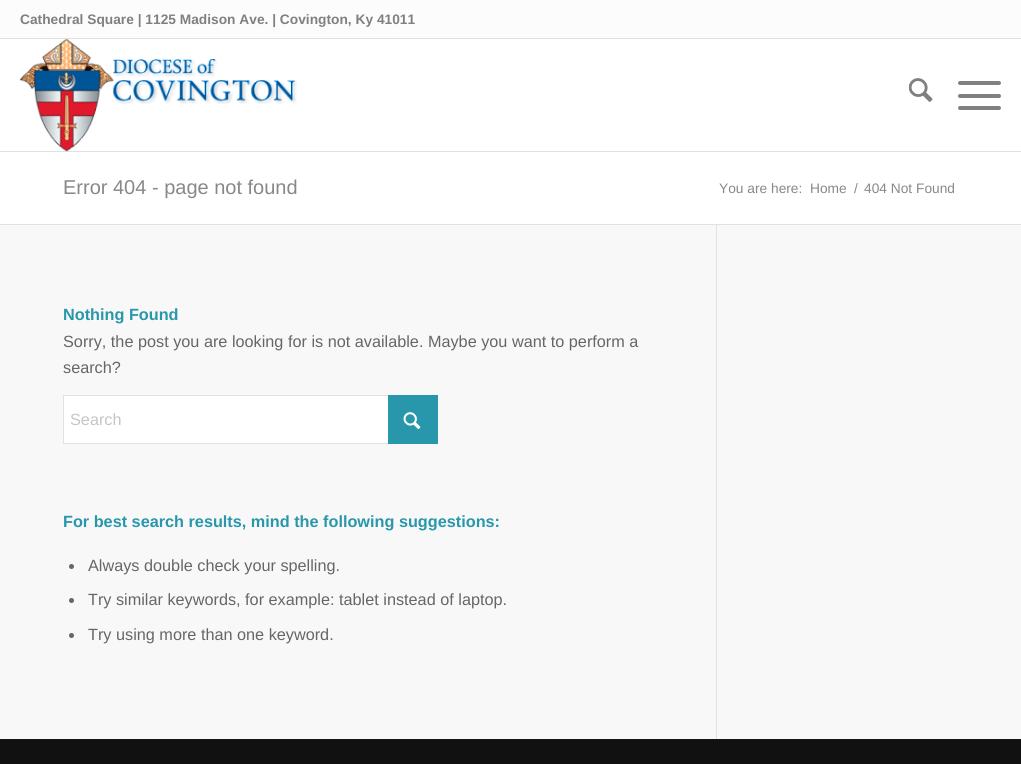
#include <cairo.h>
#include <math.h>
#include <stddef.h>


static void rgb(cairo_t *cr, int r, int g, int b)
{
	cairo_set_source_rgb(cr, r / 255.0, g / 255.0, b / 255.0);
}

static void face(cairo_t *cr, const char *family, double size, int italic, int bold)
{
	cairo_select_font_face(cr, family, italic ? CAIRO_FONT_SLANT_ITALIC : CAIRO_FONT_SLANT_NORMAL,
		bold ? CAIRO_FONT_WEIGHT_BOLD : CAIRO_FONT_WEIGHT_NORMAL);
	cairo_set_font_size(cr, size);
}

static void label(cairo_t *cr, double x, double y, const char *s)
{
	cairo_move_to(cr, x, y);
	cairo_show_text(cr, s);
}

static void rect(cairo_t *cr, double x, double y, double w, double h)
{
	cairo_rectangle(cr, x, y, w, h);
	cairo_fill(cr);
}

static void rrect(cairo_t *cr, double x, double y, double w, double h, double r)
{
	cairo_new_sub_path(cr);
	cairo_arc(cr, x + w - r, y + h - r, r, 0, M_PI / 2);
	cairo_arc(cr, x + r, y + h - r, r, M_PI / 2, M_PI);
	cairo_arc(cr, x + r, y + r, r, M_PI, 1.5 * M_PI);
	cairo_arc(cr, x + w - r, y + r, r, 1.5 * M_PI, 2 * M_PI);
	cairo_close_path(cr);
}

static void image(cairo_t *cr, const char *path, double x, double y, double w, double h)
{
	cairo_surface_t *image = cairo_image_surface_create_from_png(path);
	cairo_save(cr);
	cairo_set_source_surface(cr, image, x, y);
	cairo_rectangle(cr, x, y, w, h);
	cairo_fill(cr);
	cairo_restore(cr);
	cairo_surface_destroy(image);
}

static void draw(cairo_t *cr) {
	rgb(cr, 255, 255, 255);
	cairo_paint(cr);
	rgb(cr, 252, 252, 252);
	rect(cr, 0, 0, 1021, 38);
	rgb(cr, 225, 225, 225);
	rect(cr, 0, 38, 1021, 1);
	face(cr, "Liberation Sans", 13.75, 0, 1);
	rgb(cr, 128, 128, 128);
	label(cr, 20, 24, "Cathedral Square | 1125 Madison Ave. | Covington, Ky 41011");
	rgb(cr, 225, 225, 225);
	rect(cr, 0, 151, 1021, 1);
	image(cr, "image0.png", 20, 39, 277, 113);
	image(cr, "image1.png", 909, 78, 24, 24);
	rgb(cr, 128, 128, 128);
	rrect(cr, 958, 94, 43, 4, 2);
	cairo_fill(cr);
	rrect(cr, 958, 81, 43, 4, 2);
	cairo_fill(cr);
	rrect(cr, 958, 106, 43, 4, 2);
	cairo_fill(cr);
	face(cr, "Liberation Sans", 20, 0, 0);
	rgb(cr, 136, 136, 136);
	label(cr, 63, 194, "Error 404 - page not found");
	face(cr, "Liberation Sans", 13.75, 0, 0);
	label(cr, 719, 193, "You are here:");
	label(cr, 810, 193, "Home");
	label(cr, 854, 193, "/");
	label(cr, 864, 193, "404 Not Found");
	rgb(cr, 248, 248, 248);
	rect(cr, 0, 225, 1021, 514);
	rgb(cr, 225, 225, 225);
	rect(cr, 0, 224, 1021, 1);
	rect(cr, 716, 225, 1, 514);
	face(cr, "Liberation Sans", 16.25, 0, 1);
	rgb(cr, 41, 151, 171);
	label(cr, 63, 320, "Nothing Found");
	face(cr, "Liberation Sans", 16.25, 0, 0);
	rgb(cr, 102, 102, 102);
	label(cr, 63, 347, "Sorry, the post you are looking for is not available. Maybe you want to perform a");
	label(cr, 63, 373, "search?");
	rgb(cr, 255, 255, 255);
	rect(cr, 64, 396, 324, 47);
	cairo_rectangle(cr, 63.5, 395.5, 374, 48);
	rgb(cr, 225, 225, 225);
	cairo_set_line_width(cr, 1);
	cairo_stroke(cr);
	rgb(cr, 41, 151, 171);
	rect(cr, 388, 395, 50, 49);
	rgb(cr, 198, 198, 198);
	label(cr, 70, 425, "Search");
	image(cr, "image2.png", 403, 412, 18, 17);
	face(cr, "Liberation Sans", 16.25, 0, 1);
	rgb(cr, 41, 151, 171);
	label(cr, 63, 527, "For best search results, mind the following suggestions:");
	rgb(cr, 102, 102, 102);
	cairo_new_path(cr);
	cairo_arc(cr, 71.5, 566.5, 2.5, 0, 2 * M_PI);
	cairo_fill(cr);
	face(cr, "Liberation Sans", 16.25, 0, 0);
	label(cr, 88, 571, "Always double check your spelling.");
	cairo_new_path(cr);
	cairo_arc(cr, 71.5, 600.5, 2.5, 0, 2 * M_PI);
	cairo_fill(cr);
	label(cr, 88, 605, "Try similar keywords, for example: tablet instead of laptop.");
	cairo_new_path(cr);
	cairo_arc(cr, 71.5, 635.5, 2.5, 0, 2 * M_PI);
	cairo_fill(cr);
	label(cr, 88, 640, "Try using more than one keyword.");
	rgb(cr, 17, 17, 17);
	rect(cr, 0, 740, 1021, 24);
	rgb(cr, 22, 22, 22);
	rect(cr, 0, 739, 1021, 1);
}

int main(void) {
	cairo_surface_t *surface = cairo_image_surface_create(CAIRO_FORMAT_RGB24, 1021, 764);
	cairo_t *cr = cairo_create(surface);
	cairo_font_options_t *options = cairo_font_options_create();
	cairo_font_options_set_hint_metrics(options, CAIRO_HINT_METRICS_OFF);
	cairo_font_options_set_hint_style(options, CAIRO_HINT_STYLE_NONE);
	cairo_set_font_options(cr, options);
	cairo_set_miter_limit(cr, 4);
	draw(cr);
	cairo_surface_write_to_png(surface, "render.png");
	cairo_font_options_destroy(options);
	cairo_destroy(cr);
	cairo_surface_destroy(surface);
	return 0;
}
